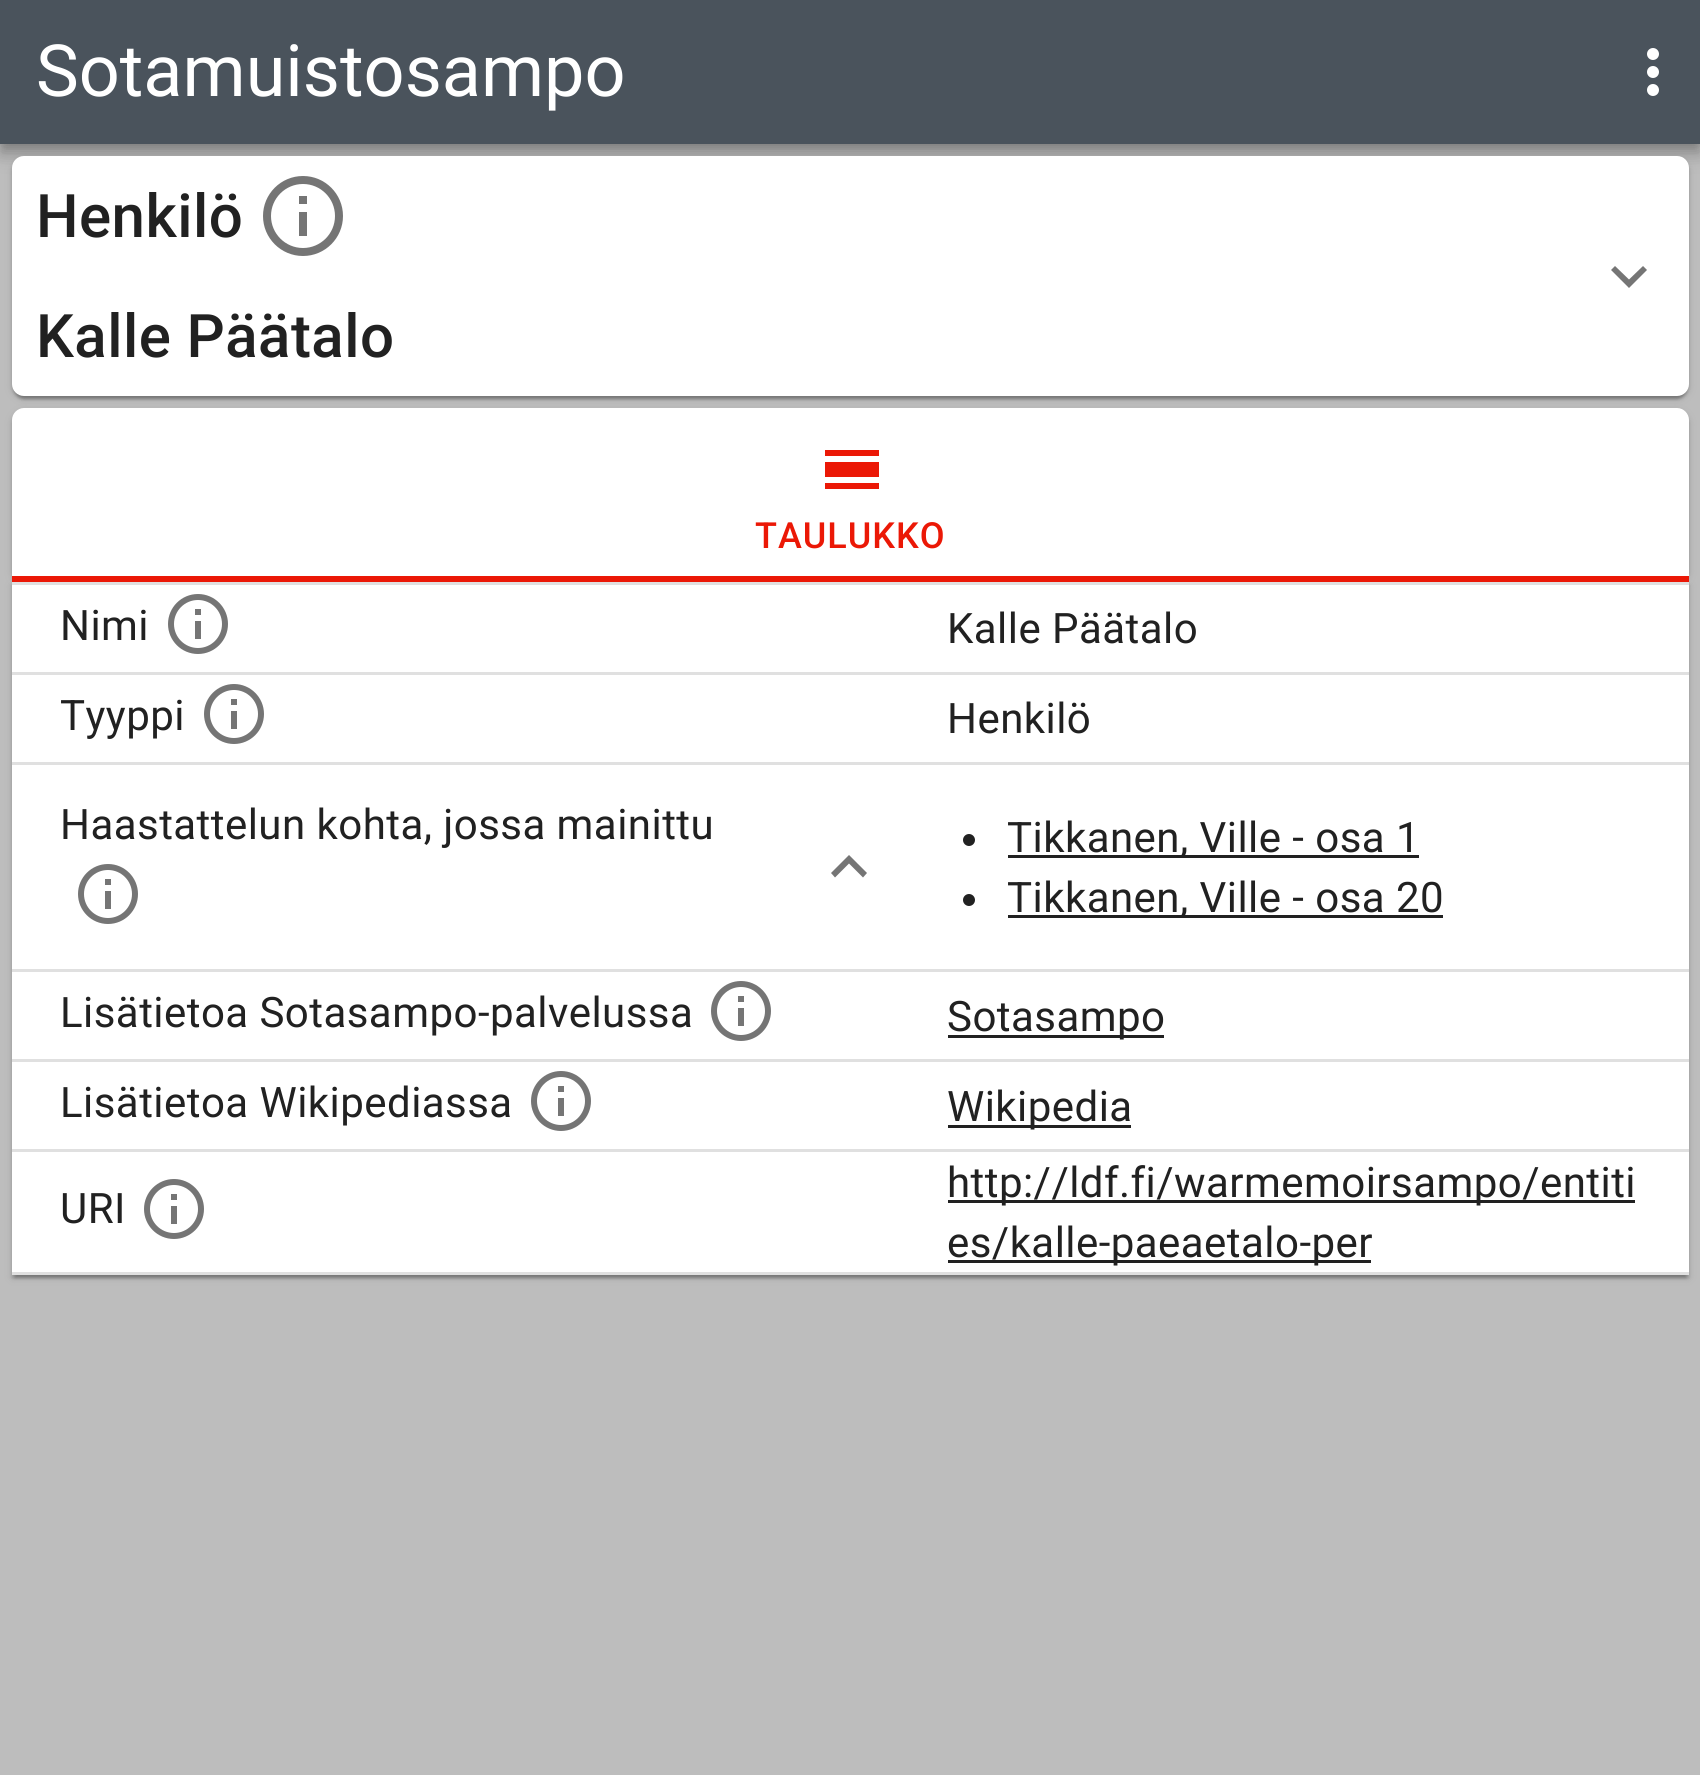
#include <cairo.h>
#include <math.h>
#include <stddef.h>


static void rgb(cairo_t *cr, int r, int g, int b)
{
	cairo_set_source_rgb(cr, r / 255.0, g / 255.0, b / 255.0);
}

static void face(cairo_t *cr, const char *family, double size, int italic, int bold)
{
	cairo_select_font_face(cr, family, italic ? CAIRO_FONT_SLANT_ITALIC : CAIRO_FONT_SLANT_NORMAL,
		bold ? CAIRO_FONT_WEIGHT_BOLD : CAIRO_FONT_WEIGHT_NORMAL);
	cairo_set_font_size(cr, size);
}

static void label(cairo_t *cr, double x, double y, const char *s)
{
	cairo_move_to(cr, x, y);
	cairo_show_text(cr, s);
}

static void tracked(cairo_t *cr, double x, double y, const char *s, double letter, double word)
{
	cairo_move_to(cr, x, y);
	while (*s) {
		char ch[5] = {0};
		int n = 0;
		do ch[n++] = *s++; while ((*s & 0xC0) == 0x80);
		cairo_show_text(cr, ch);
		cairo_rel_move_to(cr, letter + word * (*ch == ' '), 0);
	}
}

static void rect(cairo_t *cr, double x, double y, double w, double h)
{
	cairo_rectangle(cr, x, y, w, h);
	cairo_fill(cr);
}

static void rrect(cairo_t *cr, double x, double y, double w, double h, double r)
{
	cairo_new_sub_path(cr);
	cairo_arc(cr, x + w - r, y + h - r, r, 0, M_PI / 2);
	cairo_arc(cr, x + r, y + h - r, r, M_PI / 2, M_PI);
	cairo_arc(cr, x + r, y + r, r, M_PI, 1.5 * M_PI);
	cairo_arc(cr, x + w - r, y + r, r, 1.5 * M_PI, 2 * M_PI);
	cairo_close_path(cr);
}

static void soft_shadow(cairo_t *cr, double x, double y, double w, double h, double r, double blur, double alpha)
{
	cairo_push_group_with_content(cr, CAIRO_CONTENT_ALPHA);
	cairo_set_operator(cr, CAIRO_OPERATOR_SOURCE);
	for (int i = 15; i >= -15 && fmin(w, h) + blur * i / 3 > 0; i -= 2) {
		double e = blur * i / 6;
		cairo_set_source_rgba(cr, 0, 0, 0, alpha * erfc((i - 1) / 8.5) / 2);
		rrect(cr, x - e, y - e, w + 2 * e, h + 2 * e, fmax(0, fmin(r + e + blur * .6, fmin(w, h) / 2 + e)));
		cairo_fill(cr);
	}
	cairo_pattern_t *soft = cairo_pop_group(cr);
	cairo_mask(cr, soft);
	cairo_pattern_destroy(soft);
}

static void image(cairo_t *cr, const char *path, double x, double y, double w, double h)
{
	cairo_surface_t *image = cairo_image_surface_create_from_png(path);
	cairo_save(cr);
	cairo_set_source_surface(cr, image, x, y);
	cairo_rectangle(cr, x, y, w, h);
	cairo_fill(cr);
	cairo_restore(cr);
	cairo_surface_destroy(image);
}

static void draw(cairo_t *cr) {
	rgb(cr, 189, 189, 189);
	cairo_paint(cr);
	rgb(cr, 0, 0, 0);
	soft_shadow(cr, 0, 3, 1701, 144, 0, 15, 0.12);
	soft_shadow(cr, 0, 12, 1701, 144, 0, 7.5, 0.14);
	soft_shadow(cr, 3, 9, 1695, 138, 0, 6, 0.2);
	rgb(cr, 74, 83, 92);
	rect(cr, 0, 0, 1700, 144);
	face(cr, "Roboto", 72, 0, 0);
	rgb(cr, 255, 255, 255);
	label(cr, 36, 96, "Sotamuistosampo");
	image(cr, "image0.png", 1647, 48, 12, 48);
	rgb(cr, 0, 0, 0);
	soft_shadow(cr, 12, 411, 1677, 174, 12, 4.5, 0.12);
	soft_shadow(cr, 12, 411, 1677, 174, 12, 1.5, 0.14);
	rgb(cr, 255, 255, 255);
	cairo_new_path(cr);
	cairo_move_to(cr, 24, 408);
	cairo_line_to(cr, 1677, 408);
	cairo_curve_to(cr, 1683.5, 408, 1689, 413.5, 1689, 420);
	cairo_line_to(cr, 1689, 582);
	cairo_line_to(cr, 12, 582);
	cairo_line_to(cr, 12, 420);
	cairo_curve_to(cr, 12, 413.5, 17.5, 408, 24, 408);
	cairo_close_path(cr);
	cairo_fill(cr);
	rgb(cr, 0, 0, 0);
	soft_shadow(cr, 12, 159, 1677, 240, 12, 4.5, 0.12);
	soft_shadow(cr, 12, 159, 1677, 240, 12, 1.5, 0.14);
	soft_shadow(cr, 15, 165, 1671, 234, 9, 1.5, 0.2);
	rgb(cr, 255, 255, 255);
	rrect(cr, 12, 156, 1677, 240, 12);
	cairo_fill(cr);
	face(cr, "Roboto Medium", 60, 0, 0);
	rgb(cr, 33, 33, 33);
	tracked(cr, 36, 237, "Henkilö", 0.45, 0);
	image(cr, "image1.png", 263, 176, 80, 80);
	tracked(cr, 36, 357, "Kalle Päätalo", 0.45, 0);
	rgb(cr, 117, 117, 117);
	cairo_new_path(cr);
	cairo_move_to(cr, 1643, 266);
	cairo_line_to(cr, 1629, 279.5);
	cairo_line_to(cr, 1615, 266);
	cairo_line_to(cr, 1611, 270);
	cairo_line_to(cr, 1629, 288);
	cairo_line_to(cr, 1647, 270);
	cairo_close_path(cr);
	cairo_fill(cr);
	rgb(cr, 235, 24, 6);
	cairo_new_path(cr);
	cairo_move_to(cr, 825, 483);
	cairo_line_to(cr, 879, 483);
	cairo_line_to(cr, 879, 489);
	cairo_line_to(cr, 825, 489);
	cairo_close_path(cr);
	cairo_move_to(cr, 825, 462);
	cairo_line_to(cr, 879, 462);
	cairo_line_to(cr, 879, 477);
	cairo_line_to(cr, 825, 477);
	cairo_close_path(cr);
	cairo_move_to(cr, 825, 450);
	cairo_line_to(cr, 879, 450);
	cairo_line_to(cr, 879, 456);
	cairo_line_to(cr, 825, 456);
	cairo_close_path(cr);
	cairo_fill(cr);
	face(cr, "Roboto Medium", 36, 0, 0);
	tracked(cr, 755, 548, "TAULUKKO", 1, 0);
	rgb(cr, 0, 0, 0);
	soft_shadow(cr, 12, 585, 1677, 693, 0, 4.5, 0.12);
	soft_shadow(cr, 12, 585, 1677, 693, 0, 1.5, 0.14);
	rgb(cr, 235, 24, 6);
	rect(cr, 12, 576, 1677, 6);
	rgb(cr, 0, 0, 0);
	soft_shadow(cr, 15, 591, 1671, 687, 0, 1.5, 0.2);
	rgb(cr, 255, 255, 255);
	rect(cr, 12, 585, 1677, 687);
	rgb(cr, 224, 224, 224);
	rect(cr, 12, 582, 1677, 3);
	face(cr, "Roboto", 42, 0, 0);
	rgb(cr, 33, 33, 33);
	tracked(cr, 60, 640, "Nimi", 0.45, 0);
	image(cr, "image2.png", 168, 594, 60, 60);
	rgb(cr, 224, 224, 224);
	rect(cr, 12, 672, 1677, 3);
	rgb(cr, 33, 33, 33);
	tracked(cr, 947, 643, "Kalle Päätalo", 0.45, 0);
	tracked(cr, 60, 730, "Tyyppi", 0.45, 0);
	image(cr, "image2.png", 204, 684, 60, 60);
	rgb(cr, 224, 224, 224);
	rect(cr, 12, 762, 1677, 3);
	rgb(cr, 33, 33, 33);
	tracked(cr, 947, 733, "Henkilö", 0.45, 0);
	tracked(cr, 60, 839, "Haastattelun kohta, jossa mainittu", 0.45, 0);
	image(cr, "image2.png", 78, 864, 60, 60);
	rgb(cr, 117, 117, 117);
	cairo_new_path(cr);
	cairo_move_to(cr, 835, 877.5);
	cairo_line_to(cr, 849, 863.5);
	cairo_line_to(cr, 863, 877.5);
	cairo_line_to(cr, 867, 873);
	cairo_line_to(cr, 849, 855);
	cairo_line_to(cr, 831, 873);
	cairo_close_path(cr);
	cairo_fill(cr);
	rgb(cr, 224, 224, 224);
	rect(cr, 12, 969, 1677, 3);
	rgb(cr, 33, 33, 33);
	cairo_arc(cr, 969, 840, 6, 0, 2 * M_PI);
	cairo_fill(cr);
	rect(cr, 1008, 855, 411, 3);
	tracked(cr, 1007, 852, "Tikkanen, Ville - osa 1", 0.45, 0);
	cairo_new_path(cr);
	cairo_arc(cr, 969, 900, 6, 0, 2 * M_PI);
	cairo_fill(cr);
	rect(cr, 1008, 915, 435, 3);
	tracked(cr, 1007, 912, "Tikkanen, Ville - osa 20", 0.45, 0);
	tracked(cr, 60, 1027, "Lisätietoa Sotasampo-palvelussa", 0.45, 0);
	image(cr, "image2.png", 711, 981, 60, 60);
	rgb(cr, 224, 224, 224);
	rect(cr, 12, 1059, 1677, 3);
	rgb(cr, 33, 33, 33);
	rect(cr, 948, 1035, 216, 3);
	tracked(cr, 947, 1031, "Sotasampo", 0.45, 0);
	tracked(cr, 60, 1117, "Lisätietoa Wikipediassa", 0.45, 0);
	image(cr, "image2.png", 531, 1071, 60, 60);
	rgb(cr, 224, 224, 224);
	rect(cr, 12, 1149, 1677, 3);
	rgb(cr, 33, 33, 33);
	rect(cr, 948, 1125, 183, 3);
	tracked(cr, 947, 1121, "Wikipedia", 0.45, 0);
	tracked(cr, 60, 1223, "URI", 0.45, 0);
	image(cr, "image2.png", 144, 1179, 60, 60);
	rgb(cr, 224, 224, 224);
	rect(cr, 12, 1272, 1677, 3);
	rgb(cr, 33, 33, 33);
	rect(cr, 948, 1200, 687, 3);
	tracked(cr, 947, 1197, "http://ldf.fi/warmemoirsampo/entiti", 0.45, 0);
	rect(cr, 948, 1260, 423, 3);
	tracked(cr, 947, 1257, "es/kalle-paeaetalo-per", 0.45, 0);
}

int main(void) {
	cairo_surface_t *surface = cairo_image_surface_create(CAIRO_FORMAT_RGB24, 1700, 1775);
	cairo_t *cr = cairo_create(surface);
	cairo_font_options_t *options = cairo_font_options_create();
	cairo_font_options_set_hint_metrics(options, CAIRO_HINT_METRICS_OFF);
	cairo_font_options_set_hint_style(options, CAIRO_HINT_STYLE_NONE);
	cairo_set_font_options(cr, options);
	cairo_set_miter_limit(cr, 4);
	draw(cr);
	cairo_surface_write_to_png(surface, "render.png");
	cairo_font_options_destroy(options);
	cairo_destroy(cr);
	cairo_surface_destroy(surface);
	return 0;
}
